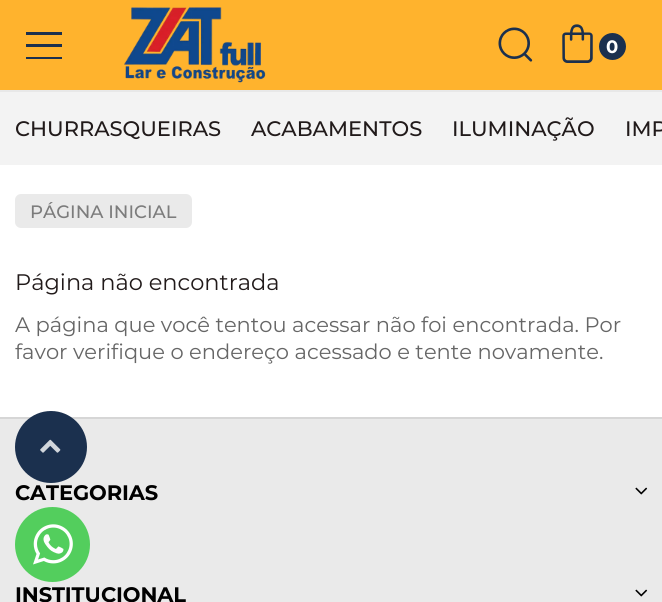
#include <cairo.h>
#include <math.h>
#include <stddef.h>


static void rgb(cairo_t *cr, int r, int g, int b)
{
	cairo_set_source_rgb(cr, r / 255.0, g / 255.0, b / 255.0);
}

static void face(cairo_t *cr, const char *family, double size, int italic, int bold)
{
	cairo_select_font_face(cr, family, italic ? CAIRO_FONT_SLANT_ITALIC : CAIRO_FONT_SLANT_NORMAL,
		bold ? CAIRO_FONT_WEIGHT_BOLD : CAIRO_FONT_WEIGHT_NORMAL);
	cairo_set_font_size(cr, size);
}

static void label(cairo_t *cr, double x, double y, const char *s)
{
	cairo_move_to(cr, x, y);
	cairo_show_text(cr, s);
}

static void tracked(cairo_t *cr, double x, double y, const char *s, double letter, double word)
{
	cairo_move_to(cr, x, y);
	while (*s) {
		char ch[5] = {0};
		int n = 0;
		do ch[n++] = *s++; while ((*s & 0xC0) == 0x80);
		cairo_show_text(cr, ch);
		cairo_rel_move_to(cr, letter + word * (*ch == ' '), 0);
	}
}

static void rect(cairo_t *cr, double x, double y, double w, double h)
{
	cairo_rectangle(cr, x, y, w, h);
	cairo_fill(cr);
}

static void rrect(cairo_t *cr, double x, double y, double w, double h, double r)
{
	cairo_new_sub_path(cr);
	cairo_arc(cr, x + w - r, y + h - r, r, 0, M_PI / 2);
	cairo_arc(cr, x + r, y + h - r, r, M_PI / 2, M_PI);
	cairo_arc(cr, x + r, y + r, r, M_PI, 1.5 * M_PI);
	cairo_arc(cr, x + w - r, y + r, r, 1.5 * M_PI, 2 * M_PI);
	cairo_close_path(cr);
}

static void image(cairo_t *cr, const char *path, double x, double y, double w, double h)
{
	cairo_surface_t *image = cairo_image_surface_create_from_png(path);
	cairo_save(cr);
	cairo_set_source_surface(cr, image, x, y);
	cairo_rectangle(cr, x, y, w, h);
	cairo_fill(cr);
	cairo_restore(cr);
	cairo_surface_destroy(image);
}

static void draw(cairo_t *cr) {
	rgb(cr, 255, 255, 255);
	cairo_paint(cr);
	rgb(cr, 255, 179, 45);
	rect(cr, 0, 0, 662, 90);
	rgb(cr, 27, 48, 78);
	rect(cr, 26, 32, 36, 3);
	rect(cr, 26, 44, 36, 3);
	rect(cr, 26, 57, 36, 2);
	image(cr, "image0.png", 124, 7, 142, 76);
	image(cr, "image1.png", 498, 27, 35, 35);
	image(cr, "image2.png", 562, 24, 31, 39);
	cairo_arc(cr, 612.5, 46.5, 13.5, 0, 2 * M_PI);
	cairo_fill(cr);
	face(cr, "Montserrat", 18, 0, 1);
	rgb(cr, 255, 255, 255);
	label(cr, 606, 53, "0");
	rgb(cr, 243, 243, 243);
	rect(cr, 0, 92, 662, 73);
	rgb(cr, 232, 232, 232);
	rect(cr, 0, 90, 662, 2);
	face(cr, "Montserrat Medium", 21, 0, 0);
	rgb(cr, 33, 26, 26);
	label(cr, 15, 136, "CHURRASQUEIRAS");
	label(cr, 251, 136, "ACABAMENTOS");
	label(cr, 452, 136, "ILUMINAÇÃO");
	label(cr, 625, 136, "IMP");
	rgb(cr, 234, 234, 234);
	rrect(cr, 15, 194, 177, 34, 6);
	cairo_fill(cr);
	face(cr, "Montserrat Medium", 18, 0, 0);
	rgb(cr, 124, 124, 124);
	label(cr, 30, 218, "PÁGINA INICIAL");
	face(cr, "Montserrat", 22.5, 0, 0);
	rgb(cr, 33, 26, 26);
	label(cr, 15, 290, "Página não encontrada");
	face(cr, "Montserrat", 21, 0, 0);
	rgb(cr, 102, 102, 102);
	label(cr, 15, 332, "A página que você tentou acessar não foi encontrada. Por");
	label(cr, 15, 359, "favor verifique o endereço acessado e tente novamente.");
	rgb(cr, 234, 234, 234);
	rect(cr, 0, 419, 662, 183);
	rgb(cr, 214, 214, 214);
	rect(cr, 0, 417, 662, 2);
	face(cr, "Montserrat", 21, 0, 1);
	rgb(cr, 0, 0, 0);
	tracked(cr, 15, 500, "CATEGORIAS", -0.1, 0);
	image(cr, "image3.png", 635, 487, 13, 8);
	tracked(cr, 15, 602, "INSTITUCIONAL", -0.1, 0);
	image(cr, "image3.png", 635, 589, 13, 8);
	rgb(cr, 27, 48, 78);
	cairo_arc(cr, 51, 447, 36, 0, 2 * M_PI);
	cairo_fill(cr);
	image(cr, "image4.png", 40, 439, 21, 14);
	rgb(cr, 83, 206, 93);
	cairo_arc(cr, 52.5, 544.5, 37.5, 0, 2 * M_PI);
	cairo_fill(cr);
	image(cr, "image5.png", 33, 524, 40, 41);
}

int main(void) {
	cairo_surface_t *surface = cairo_image_surface_create(CAIRO_FORMAT_RGB24, 662, 602);
	cairo_t *cr = cairo_create(surface);
	cairo_font_options_t *options = cairo_font_options_create();
	cairo_font_options_set_hint_metrics(options, CAIRO_HINT_METRICS_OFF);
	cairo_font_options_set_hint_style(options, CAIRO_HINT_STYLE_NONE);
	cairo_set_font_options(cr, options);
	cairo_set_miter_limit(cr, 4);
	draw(cr);
	cairo_surface_write_to_png(surface, "render.png");
	cairo_font_options_destroy(options);
	cairo_destroy(cr);
	cairo_surface_destroy(surface);
	return 0;
}
